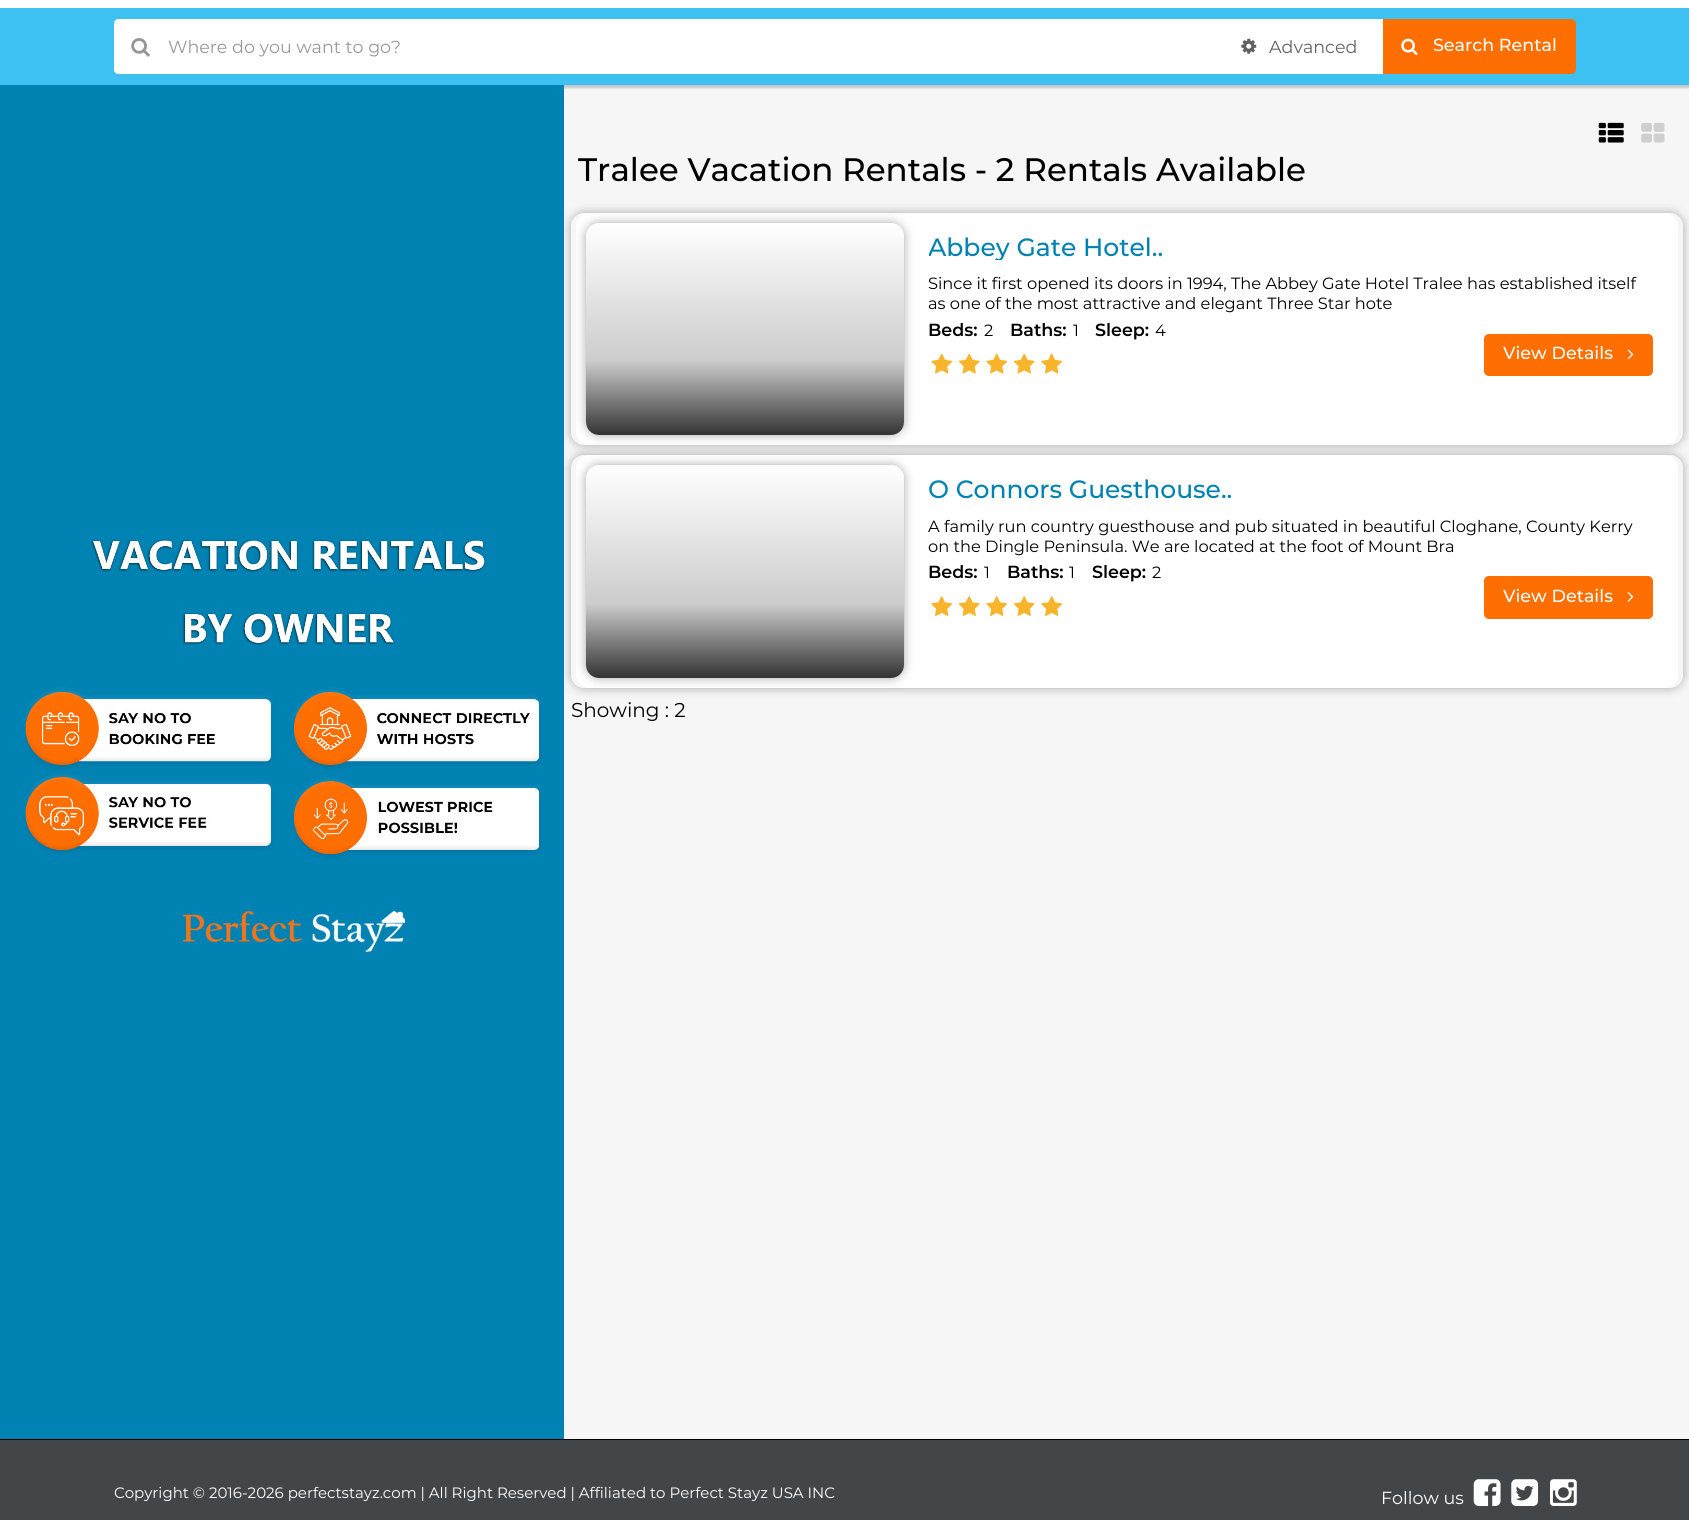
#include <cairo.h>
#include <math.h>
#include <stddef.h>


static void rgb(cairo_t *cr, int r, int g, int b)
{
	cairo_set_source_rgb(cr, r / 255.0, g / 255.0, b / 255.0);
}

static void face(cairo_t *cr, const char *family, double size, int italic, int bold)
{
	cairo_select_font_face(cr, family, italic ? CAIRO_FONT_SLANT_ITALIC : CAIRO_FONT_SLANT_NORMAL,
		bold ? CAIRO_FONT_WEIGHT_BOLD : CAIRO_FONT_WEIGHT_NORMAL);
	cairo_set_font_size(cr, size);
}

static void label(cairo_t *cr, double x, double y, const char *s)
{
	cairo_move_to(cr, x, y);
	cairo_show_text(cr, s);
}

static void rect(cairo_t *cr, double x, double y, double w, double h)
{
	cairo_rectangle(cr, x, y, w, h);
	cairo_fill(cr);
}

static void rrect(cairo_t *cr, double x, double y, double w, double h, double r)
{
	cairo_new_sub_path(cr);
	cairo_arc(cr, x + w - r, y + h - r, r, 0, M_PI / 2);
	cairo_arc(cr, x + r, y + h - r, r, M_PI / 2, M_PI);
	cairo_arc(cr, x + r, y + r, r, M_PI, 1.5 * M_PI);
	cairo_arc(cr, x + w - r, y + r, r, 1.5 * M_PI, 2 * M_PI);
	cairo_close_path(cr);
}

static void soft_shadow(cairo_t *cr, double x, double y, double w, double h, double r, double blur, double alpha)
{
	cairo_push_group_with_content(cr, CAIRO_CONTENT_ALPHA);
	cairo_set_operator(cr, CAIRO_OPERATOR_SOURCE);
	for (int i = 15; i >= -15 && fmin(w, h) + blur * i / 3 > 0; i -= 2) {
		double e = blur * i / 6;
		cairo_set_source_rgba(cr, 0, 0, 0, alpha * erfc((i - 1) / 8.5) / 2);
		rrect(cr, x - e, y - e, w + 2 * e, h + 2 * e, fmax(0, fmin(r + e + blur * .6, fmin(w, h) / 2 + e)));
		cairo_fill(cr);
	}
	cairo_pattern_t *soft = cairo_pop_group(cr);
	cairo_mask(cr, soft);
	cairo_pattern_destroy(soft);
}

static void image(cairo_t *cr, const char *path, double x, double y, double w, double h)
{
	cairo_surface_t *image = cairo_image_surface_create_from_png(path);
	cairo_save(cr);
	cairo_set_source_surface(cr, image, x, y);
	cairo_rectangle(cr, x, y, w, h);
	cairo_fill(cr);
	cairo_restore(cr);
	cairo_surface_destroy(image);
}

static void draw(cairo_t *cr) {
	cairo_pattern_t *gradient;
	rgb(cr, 246, 246, 246);
	cairo_paint(cr);
	rgb(cr, 255, 255, 255);
	rect(cr, 0, 0, 1689, 8);
	rgb(cr, 0, 0, 0);
	soft_shadow(cr, 0, 10, 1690, 78, 0, 1, 0.2);
	rgb(cr, 61, 192, 242);
	rect(cr, 0, 8, 1689, 77);
	rgb(cr, 255, 255, 255);
	cairo_new_path(cr);
	cairo_move_to(cr, 119, 19);
	cairo_line_to(cr, 1383, 19);
	cairo_line_to(cr, 1383, 74);
	cairo_line_to(cr, 119, 74);
	cairo_curve_to(cr, 116, 74, 114, 72, 114, 69);
	cairo_line_to(cr, 114, 24);
	cairo_curve_to(cr, 114, 21, 116, 19, 119, 19);
	cairo_close_path(cr);
	cairo_fill(cr);
	cairo_set_fill_rule(cr, CAIRO_FILL_RULE_EVEN_ODD);
	cairo_new_path(cr);
	cairo_move_to(cr, 119, 19);
	cairo_line_to(cr, 1382, 19);
	cairo_line_to(cr, 1382, 74);
	cairo_line_to(cr, 119, 74);
	cairo_curve_to(cr, 116, 74, 114, 72, 114, 69);
	cairo_line_to(cr, 114, 24);
	cairo_curve_to(cr, 114, 21, 116, 19, 119, 19);
	cairo_close_path(cr);
	cairo_move_to(cr, 119, 20);
	cairo_line_to(cr, 1382, 20);
	cairo_line_to(cr, 1382, 72);
	cairo_line_to(cr, 119, 72);
	cairo_curve_to(cr, 117, 72, 115, 71, 115, 69);
	cairo_line_to(cr, 115, 24);
	cairo_curve_to(cr, 115, 22, 117, 20, 119, 20);
	cairo_close_path(cr);
	cairo_fill(cr);
	image(cr, "image0.png", 131, 38, 19, 19);
	face(cr, "Montserrat", 17.5, 0, 0);
	rgb(cr, 153, 153, 153);
	label(cr, 168, 53, "Where do you want to go?");
	image(cr, "image1.png", 1241, 38, 16, 16);
	rgb(cr, 97, 97, 97);
	label(cr, 1269, 53, "Advanced");
	rgb(cr, 255, 110, 0);
	cairo_new_path(cr);
	cairo_move_to(cr, 1383, 19);
	cairo_line_to(cr, 1571, 19);
	cairo_curve_to(cr, 1574, 19, 1576, 21, 1576, 24);
	cairo_line_to(cr, 1576, 69);
	cairo_curve_to(cr, 1576, 72, 1574, 74, 1571, 74);
	cairo_line_to(cr, 1383, 74);
	cairo_close_path(cr);
	cairo_fill(cr);
	image(cr, "image2.png", 1401, 38, 17, 17);
	face(cr, "Montserrat Medium", 17.5, 0, 0);
	rgb(cr, 255, 255, 255);
	label(cr, 1433, 51, "Search Rental");
	rgb(cr, 0, 130, 179);
	rect(cr, 0, 85, 564, 1354);
	image(cr, "image3.png", 25, 539, 518, 414);
	image(cr, "image4.png", 1598, 122, 26, 21);
	image(cr, "image5.png", 1641, 122, 24, 21);
	face(cr, "Montserrat Medium", 32.5, 0, 0);
	rgb(cr, 0, 0, 0);
	label(cr, 578, 181, "Tralee Vacation Rentals - 2 Rentals Available");
	cairo_save(cr);
	cairo_set_fill_rule(cr, CAIRO_FILL_RULE_WINDING);
	cairo_rectangle(cr, 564, 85, 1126, 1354);
	cairo_clip(cr);
	cairo_set_fill_rule(cr, CAIRO_FILL_RULE_EVEN_ODD);
	cairo_new_path(cr);
	cairo_move_to(cr, 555, 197);
	cairo_line_to(cr, 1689, 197);
	cairo_line_to(cr, 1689, 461);
	cairo_line_to(cr, 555, 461);
	cairo_close_path(cr);
	cairo_move_to(cr, 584, 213);
	cairo_line_to(cr, 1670, 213);
	cairo_curve_to(cr, 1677, 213, 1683, 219, 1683, 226);
	cairo_line_to(cr, 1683, 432);
	cairo_curve_to(cr, 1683, 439, 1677, 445, 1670, 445);
	cairo_line_to(cr, 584, 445);
	cairo_curve_to(cr, 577, 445, 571, 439, 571, 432);
	cairo_line_to(cr, 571, 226);
	cairo_curve_to(cr, 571, 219, 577, 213, 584, 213);
	cairo_close_path(cr);
	cairo_clip(cr);
	rgb(cr, 167, 167, 167);
	soft_shadow(cr, 571, 213, 1112, 232, 13, 5, 1);
	cairo_restore(cr);
	rgb(cr, 255, 255, 255);
	rrect(cr, 576, 213, 1102, 232, 13);
	cairo_fill(cr);
	cairo_save(cr);
	cairo_new_path(cr);
	cairo_move_to(cr, 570, 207);
	cairo_line_to(cr, 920, 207);
	cairo_line_to(cr, 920, 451);
	cairo_line_to(cr, 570, 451);
	cairo_close_path(cr);
	cairo_move_to(cr, 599, 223);
	cairo_line_to(cr, 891, 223);
	cairo_curve_to(cr, 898, 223, 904, 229, 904, 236);
	cairo_line_to(cr, 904, 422);
	cairo_curve_to(cr, 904, 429, 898, 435, 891, 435);
	cairo_line_to(cr, 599, 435);
	cairo_curve_to(cr, 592, 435, 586, 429, 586, 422);
	cairo_line_to(cr, 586, 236);
	cairo_curve_to(cr, 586, 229, 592, 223, 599, 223);
	cairo_close_path(cr);
	cairo_clip(cr);
	rgb(cr, 167, 167, 167);
	soft_shadow(cr, 586, 223, 318, 212, 13, 5, 1);
	cairo_restore(cr);
	cairo_save(cr);
	cairo_set_fill_rule(cr, CAIRO_FILL_RULE_WINDING);
	rrect(cr, 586, 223, 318, 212, 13);
	cairo_clip(cr);
	cairo_set_fill_rule(cr, CAIRO_FILL_RULE_EVEN_ODD);
	cairo_new_path(cr);
	cairo_move_to(cr, 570, 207);
	cairo_line_to(cr, 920, 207);
	cairo_line_to(cr, 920, 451);
	cairo_line_to(cr, 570, 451);
	cairo_close_path(cr);
	cairo_move_to(cr, 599, 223);
	cairo_line_to(cr, 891, 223);
	cairo_curve_to(cr, 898, 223, 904, 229, 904, 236);
	cairo_line_to(cr, 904, 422);
	cairo_curve_to(cr, 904, 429, 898, 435, 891, 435);
	cairo_line_to(cr, 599, 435);
	cairo_curve_to(cr, 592, 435, 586, 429, 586, 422);
	cairo_line_to(cr, 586, 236);
	cairo_curve_to(cr, 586, 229, 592, 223, 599, 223);
	cairo_close_path(cr);
	cairo_clip(cr);
	rgb(cr, 167, 167, 167);
	soft_shadow(cr, 586, 223, 318, 212, 13, 5, 1);
	cairo_restore(cr);
	gradient = cairo_pattern_create_linear(745, 223, 745, 435);
	cairo_pattern_add_color_stop_rgba(gradient, 0, 0, 0, 0, 0);
	cairo_pattern_add_color_stop_rgba(gradient, 0.65, 0, 0, 0, 0.2);
	cairo_pattern_add_color_stop_rgba(gradient, 1, 0, 0, 0, 0.8);
	cairo_set_source(cr, gradient);
	cairo_pattern_destroy(gradient);
	rrect(cr, 586, 223, 318, 212, 13);
	cairo_fill(cr);
	cairo_save(cr);
	cairo_set_fill_rule(cr, CAIRO_FILL_RULE_WINDING);
	cairo_rectangle(cr, 929, 235, 475, 25);
	cairo_clip(cr);
	face(cr, "Montserrat Medium", 25, 0, 0);
	rgb(cr, 0, 131, 179);
	label(cr, 928, 256, "Abbey Gate Hotel..");
	cairo_restore(cr);
	face(cr, "Montserrat", 16.25, 0, 0);
	rgb(cr, 0, 0, 0);
	label(cr, 928, 289, "Since it first opened its doors in 1994, The Abbey Gate Hotel Tralee has established itself");
	label(cr, 928, 309, "as one of the most attractive and elegant Three Star hote");
	face(cr, "Montserrat SemiBold", 17.5, 0, 0);
	label(cr, 928, 336, "Beds:");
	face(cr, "Montserrat", 16.25, 0, 0);
	label(cr, 984, 336, "2");
	face(cr, "Montserrat SemiBold", 17.5, 0, 0);
	label(cr, 1010, 336, "Baths:");
	face(cr, "Montserrat", 16.25, 0, 0);
	label(cr, 1073, 336, "1");
	face(cr, "Montserrat SemiBold", 17.5, 0, 0);
	label(cr, 1095, 336, "Sleep:");
	face(cr, "Montserrat", 16.25, 0, 0);
	label(cr, 1155, 336, "4");
	image(cr, "image6.png", 931, 354, 22, 20);
	image(cr, "image7.png", 958, 354, 22, 20);
	image(cr, "image6.png", 986, 354, 22, 20);
	image(cr, "image7.png", 1013, 354, 22, 20);
	image(cr, "image6.png", 1041, 354, 22, 20);
	rgb(cr, 255, 110, 0);
	rrect(cr, 1484, 334, 169, 42, 5);
	cairo_fill(cr);
	face(cr, "Montserrat Medium", 17.5, 0, 0);
	rgb(cr, 255, 255, 255);
	label(cr, 1503, 359, "View Details");
	image(cr, "image8.png", 1627, 349, 7, 11);
	cairo_save(cr);
	cairo_set_fill_rule(cr, CAIRO_FILL_RULE_WINDING);
	cairo_rectangle(cr, 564, 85, 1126, 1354);
	cairo_clip(cr);
	cairo_set_fill_rule(cr, CAIRO_FILL_RULE_EVEN_ODD);
	cairo_new_path(cr);
	cairo_move_to(cr, 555, 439);
	cairo_line_to(cr, 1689, 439);
	cairo_line_to(cr, 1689, 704);
	cairo_line_to(cr, 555, 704);
	cairo_close_path(cr);
	cairo_move_to(cr, 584, 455);
	cairo_line_to(cr, 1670, 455);
	cairo_curve_to(cr, 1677, 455, 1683, 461, 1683, 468);
	cairo_line_to(cr, 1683, 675);
	cairo_curve_to(cr, 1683, 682, 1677, 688, 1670, 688);
	cairo_line_to(cr, 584, 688);
	cairo_curve_to(cr, 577, 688, 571, 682, 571, 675);
	cairo_line_to(cr, 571, 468);
	cairo_curve_to(cr, 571, 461, 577, 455, 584, 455);
	cairo_close_path(cr);
	cairo_clip(cr);
	rgb(cr, 167, 167, 167);
	soft_shadow(cr, 571, 455, 1112, 233, 13, 5, 1);
	cairo_restore(cr);
	rrect(cr, 576, 455, 1102, 233, 13);
	cairo_fill(cr);
	cairo_save(cr);
	cairo_new_path(cr);
	cairo_move_to(cr, 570, 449);
	cairo_line_to(cr, 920, 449);
	cairo_line_to(cr, 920, 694);
	cairo_line_to(cr, 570, 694);
	cairo_close_path(cr);
	cairo_move_to(cr, 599, 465);
	cairo_line_to(cr, 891, 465);
	cairo_curve_to(cr, 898, 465, 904, 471, 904, 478);
	cairo_line_to(cr, 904, 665);
	cairo_curve_to(cr, 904, 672, 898, 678, 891, 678);
	cairo_line_to(cr, 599, 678);
	cairo_curve_to(cr, 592, 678, 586, 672, 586, 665);
	cairo_line_to(cr, 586, 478);
	cairo_curve_to(cr, 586, 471, 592, 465, 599, 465);
	cairo_close_path(cr);
	cairo_clip(cr);
	rgb(cr, 167, 167, 167);
	soft_shadow(cr, 586, 465, 318, 213, 13, 5, 1);
	cairo_restore(cr);
	cairo_save(cr);
	cairo_set_fill_rule(cr, CAIRO_FILL_RULE_WINDING);
	rrect(cr, 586, 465, 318, 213, 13);
	cairo_clip(cr);
	cairo_set_fill_rule(cr, CAIRO_FILL_RULE_EVEN_ODD);
	cairo_new_path(cr);
	cairo_move_to(cr, 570, 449);
	cairo_line_to(cr, 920, 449);
	cairo_line_to(cr, 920, 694);
	cairo_line_to(cr, 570, 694);
	cairo_close_path(cr);
	cairo_move_to(cr, 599, 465);
	cairo_line_to(cr, 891, 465);
	cairo_curve_to(cr, 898, 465, 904, 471, 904, 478);
	cairo_line_to(cr, 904, 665);
	cairo_curve_to(cr, 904, 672, 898, 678, 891, 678);
	cairo_line_to(cr, 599, 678);
	cairo_curve_to(cr, 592, 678, 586, 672, 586, 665);
	cairo_line_to(cr, 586, 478);
	cairo_curve_to(cr, 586, 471, 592, 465, 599, 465);
	cairo_close_path(cr);
	cairo_clip(cr);
	rgb(cr, 167, 167, 167);
	soft_shadow(cr, 586, 465, 318, 213, 13, 5, 1);
	cairo_restore(cr);
	gradient = cairo_pattern_create_linear(745, 465, 745, 678);
	cairo_pattern_add_color_stop_rgba(gradient, 0, 0, 0, 0, 0);
	cairo_pattern_add_color_stop_rgba(gradient, 0.65, 0, 0, 0, 0.2);
	cairo_pattern_add_color_stop_rgba(gradient, 1, 0, 0, 0, 0.8);
	cairo_set_source(cr, gradient);
	cairo_pattern_destroy(gradient);
	rrect(cr, 586, 465, 318, 213, 13);
	cairo_fill(cr);
	face(cr, "Montserrat Medium", 25, 0, 0);
	rgb(cr, 0, 131, 179);
	label(cr, 928, 498, "O Connors Guesthouse..");
	face(cr, "Montserrat", 16.25, 0, 0);
	rgb(cr, 0, 0, 0);
	label(cr, 928, 532, "A family run country guesthouse and pub situated in beautiful Cloghane, County Kerry");
	label(cr, 928, 552, "on the Dingle Peninsula. We are located at the foot of Mount Bra");
	face(cr, "Montserrat SemiBold", 17.5, 0, 0);
	label(cr, 928, 578, "Beds:");
	face(cr, "Montserrat", 16.25, 0, 0);
	label(cr, 984, 578, "1");
	face(cr, "Montserrat SemiBold", 17.5, 0, 0);
	label(cr, 1007, 578, "Baths:");
	face(cr, "Montserrat", 16.25, 0, 0);
	label(cr, 1069, 578, "1");
	face(cr, "Montserrat SemiBold", 17.5, 0, 0);
	label(cr, 1092, 578, "Sleep:");
	face(cr, "Montserrat", 16.25, 0, 0);
	label(cr, 1152, 578, "2");
	image(cr, "image9.png", 931, 596, 22, 20);
	image(cr, "image10.png", 958, 596, 22, 20);
	image(cr, "image9.png", 986, 596, 22, 20);
	image(cr, "image10.png", 1013, 596, 22, 20);
	image(cr, "image9.png", 1041, 596, 22, 20);
	rgb(cr, 255, 110, 0);
	rrect(cr, 1484, 576, 169, 43, 5);
	cairo_fill(cr);
	face(cr, "Montserrat Medium", 17.5, 0, 0);
	rgb(cr, 255, 255, 255);
	label(cr, 1503, 602, "View Details");
	image(cr, "image11.png", 1627, 592, 7, 10);
	face(cr, "Montserrat", 20, 0, 0);
	rgb(cr, 0, 0, 0);
	label(cr, 571, 717, "Showing : 2");
	rgb(cr, 67, 70, 72);
	rect(cr, 0, 1440, 1689, 80);
	rgb(cr, 0, 0, 0);
	rect(cr, 0, 1439, 1689, 1);
	face(cr, "Montserrat", 15, 0, 0);
	rgb(cr, 255, 255, 255);
	label(cr, 114, 1498, "Copyright © 2016-2026 perfectstayz.com | All Right Reserved | Affiliated to Perfect Stayz USA INC");
	face(cr, "Montserrat", 17.5, 0, 0);
	label(cr, 1381, 1504, "Follow us");
	image(cr, "image12.png", 1473, 1479, 28, 27);
	image(cr, "image13.png", 1511, 1479, 28, 27);
	image(cr, "image14.png", 1550, 1479, 27, 27);
}

int main(void) {
	cairo_surface_t *surface = cairo_image_surface_create(CAIRO_FORMAT_RGB24, 1689, 1520);
	cairo_t *cr = cairo_create(surface);
	cairo_font_options_t *options = cairo_font_options_create();
	cairo_font_options_set_hint_metrics(options, CAIRO_HINT_METRICS_OFF);
	cairo_font_options_set_hint_style(options, CAIRO_HINT_STYLE_NONE);
	cairo_set_font_options(cr, options);
	cairo_set_miter_limit(cr, 4);
	draw(cr);
	cairo_surface_write_to_png(surface, "render.png");
	cairo_font_options_destroy(options);
	cairo_destroy(cr);
	cairo_surface_destroy(surface);
	return 0;
}
